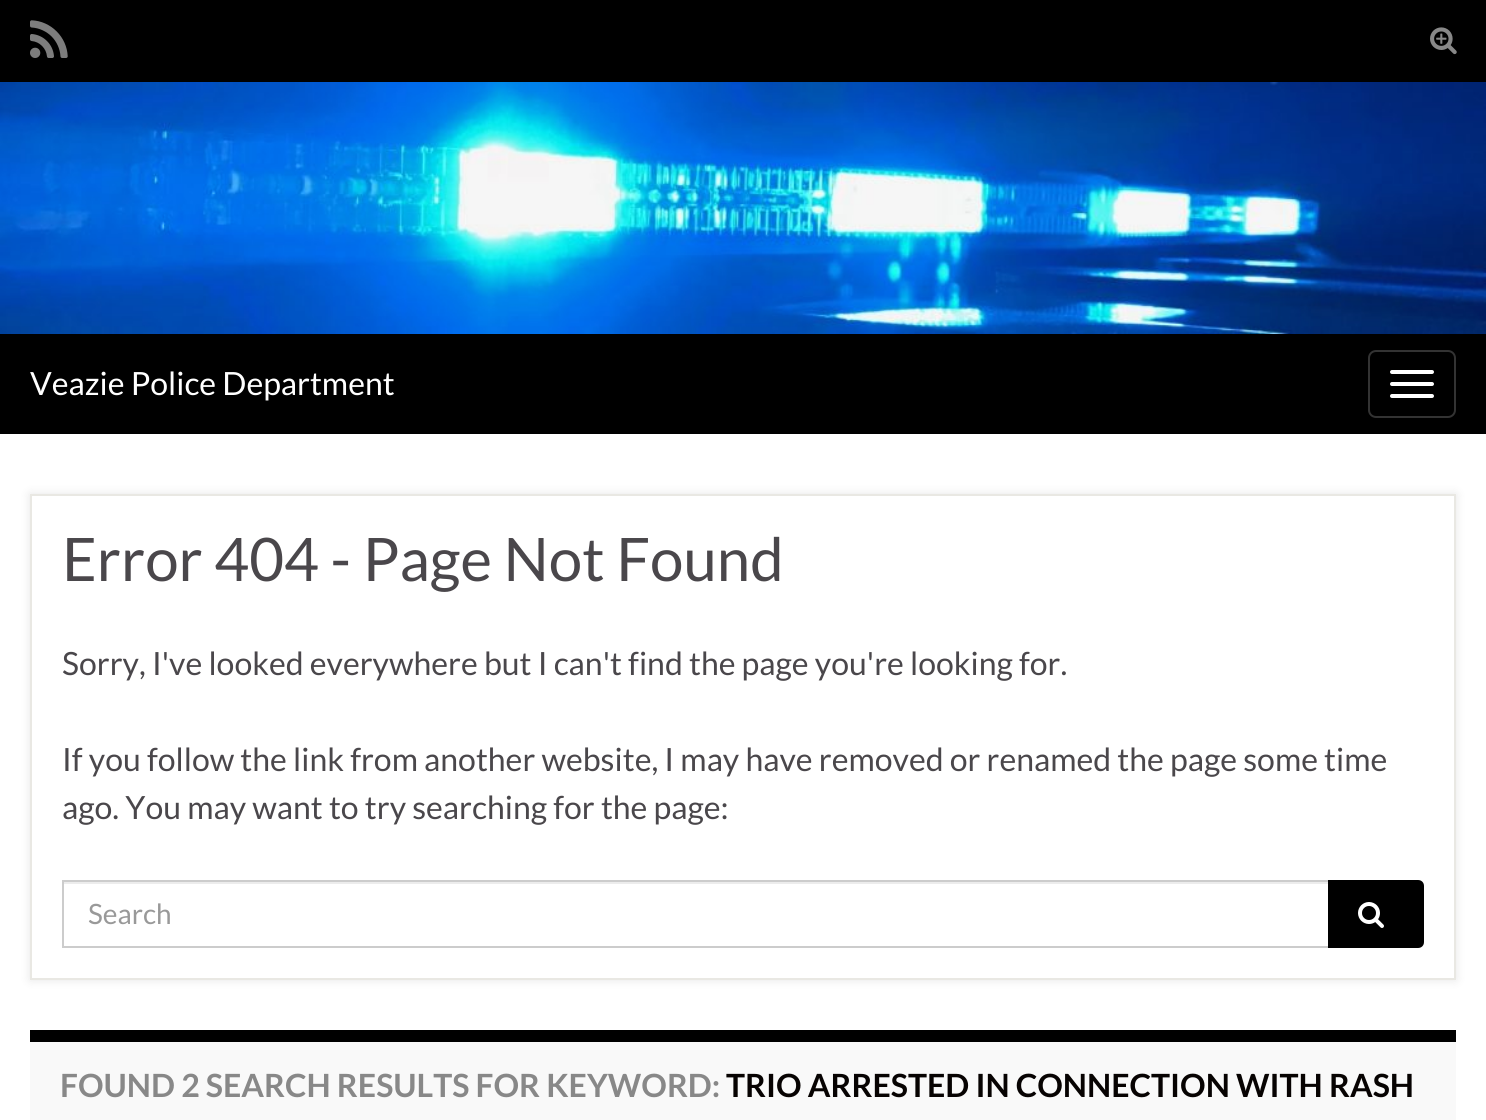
#include <cairo.h>
#include <math.h>
#include <stddef.h>


static void rgb(cairo_t *cr, int r, int g, int b)
{
	cairo_set_source_rgb(cr, r / 255.0, g / 255.0, b / 255.0);
}

static void face(cairo_t *cr, const char *family, double size, int italic, int bold)
{
	cairo_select_font_face(cr, family, italic ? CAIRO_FONT_SLANT_ITALIC : CAIRO_FONT_SLANT_NORMAL,
		bold ? CAIRO_FONT_WEIGHT_BOLD : CAIRO_FONT_WEIGHT_NORMAL);
	cairo_set_font_size(cr, size);
}

static void label(cairo_t *cr, double x, double y, const char *s)
{
	cairo_move_to(cr, x, y);
	cairo_show_text(cr, s);
}

static void rect(cairo_t *cr, double x, double y, double w, double h)
{
	cairo_rectangle(cr, x, y, w, h);
	cairo_fill(cr);
}

static void rrect(cairo_t *cr, double x, double y, double w, double h, double r)
{
	cairo_new_sub_path(cr);
	cairo_arc(cr, x + w - r, y + h - r, r, 0, M_PI / 2);
	cairo_arc(cr, x + r, y + h - r, r, M_PI / 2, M_PI);
	cairo_arc(cr, x + r, y + r, r, M_PI, 1.5 * M_PI);
	cairo_arc(cr, x + w - r, y + r, r, 1.5 * M_PI, 2 * M_PI);
	cairo_close_path(cr);
}

static void soft_shadow(cairo_t *cr, double x, double y, double w, double h, double r, double blur, double alpha)
{
	cairo_push_group_with_content(cr, CAIRO_CONTENT_ALPHA);
	cairo_set_operator(cr, CAIRO_OPERATOR_SOURCE);
	for (int i = 15; i >= -15 && fmin(w, h) + blur * i / 3 > 0; i -= 2) {
		double e = blur * i / 6;
		cairo_set_source_rgba(cr, 0, 0, 0, alpha * erfc((i - 1) / 8.5) / 2);
		rrect(cr, x - e, y - e, w + 2 * e, h + 2 * e, fmax(0, fmin(r + e + blur * .6, fmin(w, h) / 2 + e)));
		cairo_fill(cr);
	}
	cairo_pattern_t *soft = cairo_pop_group(cr);
	cairo_mask(cr, soft);
	cairo_pattern_destroy(soft);
}

static void image(cairo_t *cr, const char *path, double x, double y, double w, double h)
{
	cairo_surface_t *image = cairo_image_surface_create_from_png(path);
	cairo_save(cr);
	cairo_set_source_surface(cr, image, x, y);
	cairo_rectangle(cr, x, y, w, h);
	cairo_fill(cr);
	cairo_restore(cr);
	cairo_surface_destroy(image);
}

static void draw(cairo_t *cr) {
	rgb(cr, 0, 0, 0);
	cairo_paint(cr);
	image(cr, "image0.png", 30, 20, 38, 38);
	image(cr, "image1.png", 1430, 27, 27, 28);
	image(cr, "image2.png", 0, 82, 1486, 252);
	face(cr, "Lato", 32, 0, 0);
	rgb(cr, 255, 255, 255);
	label(cr, 30, 395, "Veazie Police Department");
	rrect(cr, 1369, 351, 86, 66, 7);
	rgb(cr, 51, 51, 51);
	cairo_stroke(cr);
	rgb(cr, 255, 255, 255);
	rrect(cr, 1390, 370, 44, 4, 2);
	cairo_fill(cr);
	rrect(cr, 1390, 382, 44, 4, 2);
	cairo_fill(cr);
	rrect(cr, 1390, 394, 44, 4, 2);
	cairo_fill(cr);
	rect(cr, 0, 434, 1486, 686);
	cairo_save(cr);
	cairo_set_fill_rule(cr, CAIRO_FILL_RULE_EVEN_ODD);
	cairo_new_path(cr);
	cairo_move_to(cr, 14, 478);
	cairo_line_to(cr, 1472, 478);
	cairo_line_to(cr, 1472, 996);
	cairo_line_to(cr, 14, 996);
	cairo_close_path(cr);
	cairo_move_to(cr, 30, 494);
	cairo_line_to(cr, 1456, 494);
	cairo_line_to(cr, 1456, 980);
	cairo_line_to(cr, 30, 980);
	cairo_close_path(cr);
	cairo_clip(cr);
	rgb(cr, 0, 0, 0);
	soft_shadow(cr, 30, 494, 1426, 486, 0, 5, 0.1);
	cairo_restore(cr);
	cairo_rectangle(cr, 31, 495, 1424, 484);
	rgb(cr, 233, 232, 227);
	cairo_stroke(cr);
	face(cr, "Lato", 60, 0, 0);
	rgb(cr, 74, 71, 75);
	label(cr, 62, 581, "Error 404 - Page Not Found");
	face(cr, "Lato", 32, 0, 0);
	label(cr, 62, 675, "Sorry, I've looked everywhere but I can't find the page you're looking for.");
	label(cr, 62, 771, "If you follow the link from another website, I may have removed or renamed the page some time");
	label(cr, 62, 819, "ago. You may want to try searching for the page:");
	rgb(cr, 236, 236, 236);
	rect(cr, 64, 882, 1264, 2);
	cairo_rectangle(cr, 63, 881, 1266, 66);
	rgb(cr, 204, 204, 204);
	cairo_stroke(cr);
	face(cr, "Lato", 28, 0, 0);
	rgb(cr, 153, 153, 153);
	label(cr, 88, 924, "Search");
	rgb(cr, 0, 0, 0);
	cairo_new_path(cr);
	cairo_move_to(cr, 1328, 880);
	cairo_line_to(cr, 1418, 880);
	cairo_curve_to(cr, 1421.5, 880, 1424, 882.5, 1424, 886);
	cairo_line_to(cr, 1424, 942);
	cairo_curve_to(cr, 1424, 945.5, 1421.5, 948, 1418, 948);
	cairo_line_to(cr, 1328, 948);
	cairo_close_path(cr);
	cairo_fill(cr);
	image(cr, "image3.png", 1358, 902, 26, 26);
	rgb(cr, 249, 249, 249);
	rect(cr, 30, 1042, 1426, 78);
	rgb(cr, 0, 0, 0);
	rect(cr, 30, 1030, 1426, 12);
	face(cr, "Lato", 32, 0, 1);
	rgb(cr, 136, 136, 136);
	label(cr, 60, 1097, "FOUND 2 SEARCH RESULTS FOR KEYWORD:");
	rgb(cr, 7, 3, 2);
	label(cr, 726, 1097, "TRIO ARRESTED IN CONNECTION WITH RASH");
}

int main(void) {
	cairo_surface_t *surface = cairo_image_surface_create(CAIRO_FORMAT_RGB24, 1486, 1120);
	cairo_t *cr = cairo_create(surface);
	cairo_font_options_t *options = cairo_font_options_create();
	cairo_font_options_set_hint_metrics(options, CAIRO_HINT_METRICS_OFF);
	cairo_font_options_set_hint_style(options, CAIRO_HINT_STYLE_NONE);
	cairo_set_font_options(cr, options);
	cairo_set_miter_limit(cr, 4);
	draw(cr);
	cairo_surface_write_to_png(surface, "render.png");
	cairo_font_options_destroy(options);
	cairo_destroy(cr);
	cairo_surface_destroy(surface);
	return 0;
}
